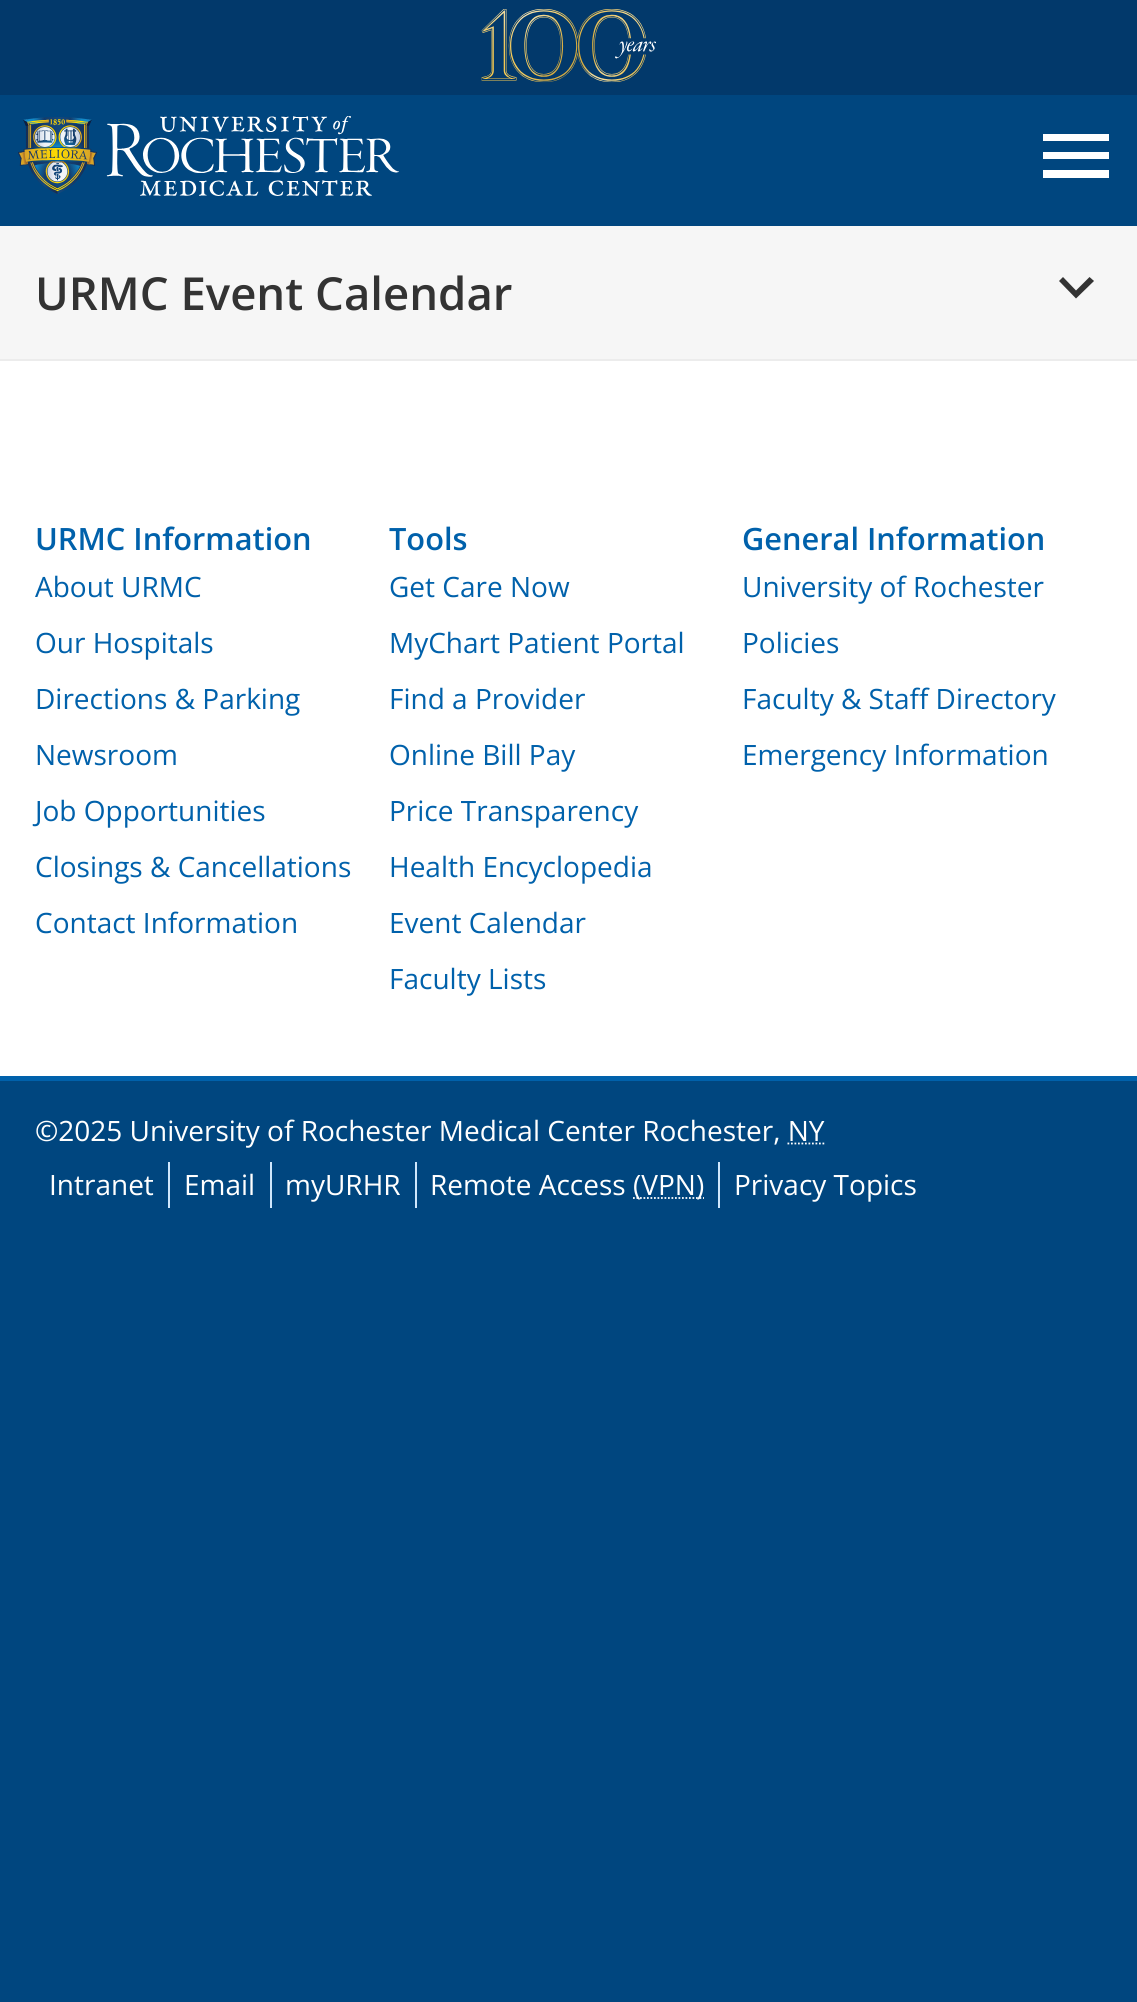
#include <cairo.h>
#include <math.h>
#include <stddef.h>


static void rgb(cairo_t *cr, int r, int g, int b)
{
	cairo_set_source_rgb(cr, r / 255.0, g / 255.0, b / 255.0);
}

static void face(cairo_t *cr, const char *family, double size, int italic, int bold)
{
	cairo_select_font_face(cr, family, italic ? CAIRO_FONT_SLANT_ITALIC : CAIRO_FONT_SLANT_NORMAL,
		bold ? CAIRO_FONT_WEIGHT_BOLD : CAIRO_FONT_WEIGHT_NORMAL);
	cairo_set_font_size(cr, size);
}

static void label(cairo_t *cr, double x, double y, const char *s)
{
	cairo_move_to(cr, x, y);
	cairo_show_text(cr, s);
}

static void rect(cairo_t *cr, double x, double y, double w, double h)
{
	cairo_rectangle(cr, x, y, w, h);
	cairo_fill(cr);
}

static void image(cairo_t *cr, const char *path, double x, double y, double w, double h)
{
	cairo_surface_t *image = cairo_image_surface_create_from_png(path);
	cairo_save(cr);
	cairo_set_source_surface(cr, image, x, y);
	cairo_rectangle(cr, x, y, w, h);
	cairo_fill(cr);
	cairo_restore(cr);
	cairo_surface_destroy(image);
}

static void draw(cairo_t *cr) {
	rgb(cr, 0, 70, 127);
	cairo_paint(cr);
	rgb(cr, 2, 57, 107);
	rect(cr, 0, 0, 1137, 95);
	image(cr, "image0.png", 481, 9, 175, 74);
	image(cr, "image1.png", 18, 116, 381, 80);
	rgb(cr, 255, 255, 255);
	cairo_new_path(cr);
	cairo_move_to(cr, 1043, 134);
	cairo_line_to(cr, 1109, 134);
	cairo_line_to(cr, 1109, 141);
	cairo_line_to(cr, 1043, 141);
	cairo_close_path(cr);
	cairo_move_to(cr, 1043, 159);
	cairo_line_to(cr, 1043, 152);
	cairo_line_to(cr, 1109, 152);
	cairo_line_to(cr, 1109, 159);
	cairo_close_path(cr);
	cairo_move_to(cr, 1043, 178);
	cairo_line_to(cr, 1043, 170);
	cairo_line_to(cr, 1109, 170);
	cairo_line_to(cr, 1109, 178);
	cairo_close_path(cr);
	cairo_fill(cr);
	rect(cr, 0, 361, 1137, 715);
	rgb(cr, 246, 246, 246);
	rect(cr, 0, 226, 1137, 133);
	face(cr, "Open Sans SemiBold", 45.5, 0, 0);
	rgb(cr, 51, 51, 51);
	label(cr, 35, 310, "URMC Event Calendar");
	cairo_new_path(cr);
	cairo_move_to(cr, 1063, 277);
	cairo_line_to(cr, 1076, 290.5);
	cairo_line_to(cr, 1089.5, 277);
	cairo_line_to(cr, 1094, 281);
	cairo_line_to(cr, 1076, 298.5);
	cairo_line_to(cr, 1059, 281);
	cairo_close_path(cr);
	cairo_fill(cr);
	rgb(cr, 236, 236, 236);
	rect(cr, 0, 359, 1137, 2);
	face(cr, "Open Sans SemiBold", 30.75, 0, 0);
	rgb(cr, 0, 97, 171);
	label(cr, 35, 550, "URMC Information");
	face(cr, "Open Sans", 28, 0, 0);
	label(cr, 35, 597, "About URMC");
	label(cr, 35, 653, "Our Hospitals");
	label(cr, 35, 709, "Directions & Parking");
	label(cr, 35, 765, "Newsroom");
	label(cr, 35, 821, "Job Opportunities");
	label(cr, 35, 877, "Closings & Cancellations");
	label(cr, 35, 933, "Contact Information");
	face(cr, "Open Sans SemiBold", 30.75, 0, 0);
	label(cr, 389, 550, "Tools");
	face(cr, "Open Sans", 28, 0, 0);
	label(cr, 389, 597, "Get Care Now");
	label(cr, 389, 653, "MyChart Patient Portal");
	label(cr, 389, 709, "Find a Provider");
	label(cr, 389, 765, "Online Bill Pay");
	label(cr, 389, 821, "Price Transparency");
	label(cr, 389, 877, "Health Encyclopedia");
	label(cr, 389, 933, "Event Calendar");
	label(cr, 389, 989, "Faculty Lists");
	face(cr, "Open Sans SemiBold", 30.75, 0, 0);
	label(cr, 742, 550, "General Information");
	face(cr, "Open Sans", 28, 0, 0);
	label(cr, 742, 597, "University of Rochester");
	label(cr, 742, 653, "Policies");
	label(cr, 742, 709, "Faculty & Staff Directory");
	label(cr, 742, 765, "Emergency Information");
	rect(cr, 0, 1076, 1137, 5);
	rgb(cr, 255, 255, 255);
	label(cr, 35, 1141, "©2025 University of Rochester Medical Center Rochester, NY");
	cairo_new_path(cr);
	cairo_move_to(cr, 787.5, 1143.5);
	cairo_line_to(cr, 824.5, 1143.5);
	cairo_set_line_width(cr, 1.8);
	cairo_set_dash(cr, (double[]){1.75, 1.75}, 2, 0);
	cairo_stroke(cr);
	label(cr, 49, 1195, "Intranet");
	rgb(cr, 207, 231, 252);
	rect(cr, 168, 1162, 2, 46);
	rgb(cr, 255, 255, 255);
	label(cr, 184, 1195, "Email");
	rgb(cr, 207, 231, 252);
	rect(cr, 270, 1162, 2, 46);
	rgb(cr, 255, 255, 255);
	label(cr, 285, 1195, "myURHR");
	rgb(cr, 207, 231, 252);
	rect(cr, 415, 1162, 2, 46);
	rgb(cr, 255, 255, 255);
	label(cr, 430, 1195, "Remote Access");
	cairo_new_path(cr);
	cairo_move_to(cr, 633, 1198);
	cairo_line_to(cr, 704, 1198);
	cairo_stroke(cr);
	label(cr, 633, 1195, "(VPN)");
	rgb(cr, 207, 231, 252);
	rect(cr, 718, 1162, 2, 46);
	rgb(cr, 255, 255, 255);
	label(cr, 734, 1195, "Privacy Topics");
}

int main(void) {
	cairo_surface_t *surface = cairo_image_surface_create(CAIRO_FORMAT_RGB24, 1137, 2002);
	cairo_t *cr = cairo_create(surface);
	cairo_font_options_t *options = cairo_font_options_create();
	cairo_font_options_set_hint_metrics(options, CAIRO_HINT_METRICS_OFF);
	cairo_font_options_set_hint_style(options, CAIRO_HINT_STYLE_NONE);
	cairo_set_font_options(cr, options);
	cairo_set_miter_limit(cr, 4);
	draw(cr);
	cairo_surface_write_to_png(surface, "render.png");
	cairo_font_options_destroy(options);
	cairo_destroy(cr);
	cairo_surface_destroy(surface);
	return 0;
}
